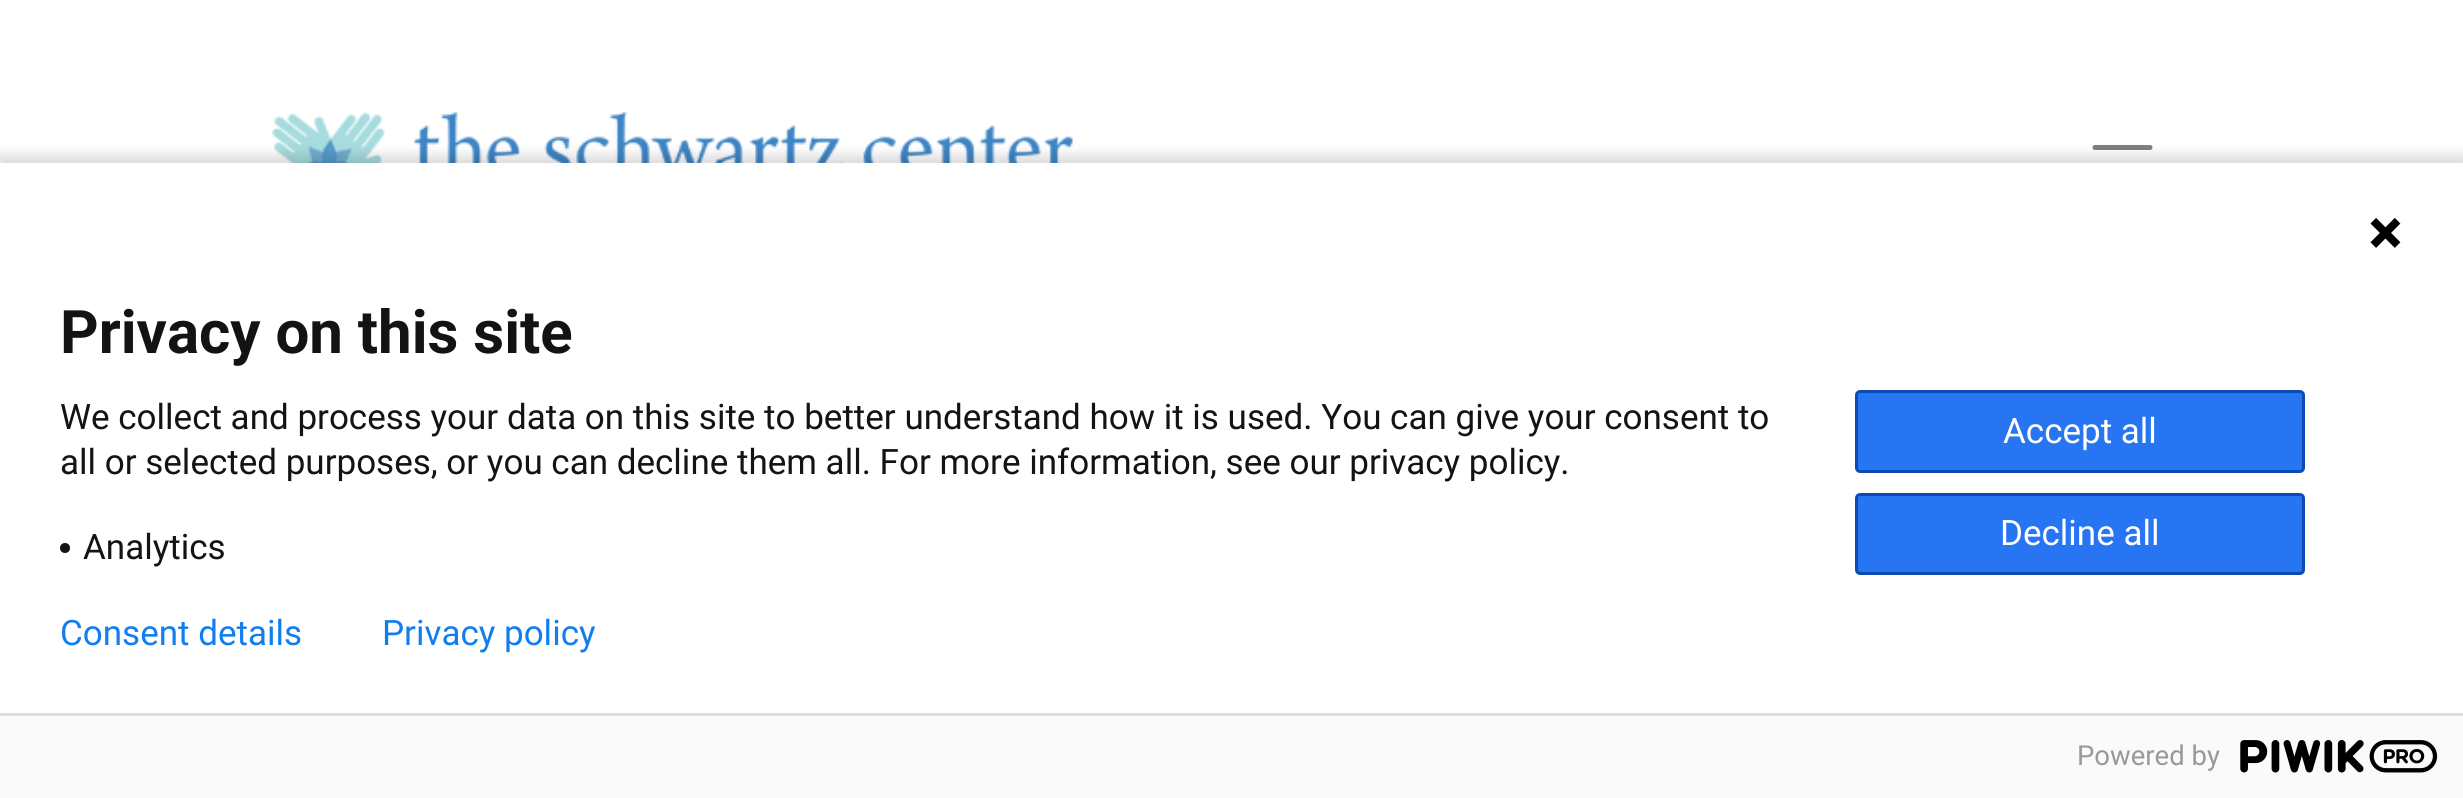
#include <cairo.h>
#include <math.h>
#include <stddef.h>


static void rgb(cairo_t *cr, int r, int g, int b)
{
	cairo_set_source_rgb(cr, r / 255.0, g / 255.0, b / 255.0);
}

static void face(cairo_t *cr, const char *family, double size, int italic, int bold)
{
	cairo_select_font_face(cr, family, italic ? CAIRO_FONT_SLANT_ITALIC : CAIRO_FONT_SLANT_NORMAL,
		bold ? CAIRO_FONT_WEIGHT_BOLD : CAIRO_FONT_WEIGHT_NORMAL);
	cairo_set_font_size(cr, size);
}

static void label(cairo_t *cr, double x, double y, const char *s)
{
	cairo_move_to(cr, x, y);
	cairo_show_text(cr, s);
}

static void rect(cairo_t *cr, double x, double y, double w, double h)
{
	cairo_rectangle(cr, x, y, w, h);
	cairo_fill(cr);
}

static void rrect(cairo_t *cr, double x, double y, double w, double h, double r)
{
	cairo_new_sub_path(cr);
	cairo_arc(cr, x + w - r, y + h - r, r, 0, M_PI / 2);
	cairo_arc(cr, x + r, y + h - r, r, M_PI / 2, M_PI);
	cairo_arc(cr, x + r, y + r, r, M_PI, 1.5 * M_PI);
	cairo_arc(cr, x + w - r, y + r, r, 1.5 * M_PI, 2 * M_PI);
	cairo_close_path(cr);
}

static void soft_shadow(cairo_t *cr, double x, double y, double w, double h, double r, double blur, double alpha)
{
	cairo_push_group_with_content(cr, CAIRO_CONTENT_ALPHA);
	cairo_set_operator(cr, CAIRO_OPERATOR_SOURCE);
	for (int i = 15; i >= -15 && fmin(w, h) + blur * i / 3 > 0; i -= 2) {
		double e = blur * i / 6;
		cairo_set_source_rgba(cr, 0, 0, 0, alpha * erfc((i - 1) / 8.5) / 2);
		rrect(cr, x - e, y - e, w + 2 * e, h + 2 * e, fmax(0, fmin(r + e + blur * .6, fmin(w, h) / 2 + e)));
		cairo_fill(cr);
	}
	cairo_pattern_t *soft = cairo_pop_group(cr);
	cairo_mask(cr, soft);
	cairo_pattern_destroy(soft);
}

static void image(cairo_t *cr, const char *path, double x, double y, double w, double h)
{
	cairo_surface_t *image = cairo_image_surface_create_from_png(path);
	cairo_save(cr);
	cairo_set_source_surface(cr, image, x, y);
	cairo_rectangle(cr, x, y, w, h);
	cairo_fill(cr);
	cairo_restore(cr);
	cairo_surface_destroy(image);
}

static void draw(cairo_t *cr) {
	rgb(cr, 255, 255, 255);
	cairo_paint(cr);
	image(cr, "image0.png", 272, 112, 801, 51);
	cairo_new_path(cr);
	cairo_move_to(cr, 2095, 147.5);
	cairo_line_to(cr, 2150, 147.5);
	cairo_move_to(cr, 2095, 167.5);
	cairo_line_to(cr, 2150, 167.5);
	cairo_move_to(cr, 2095, 187.5);
	cairo_line_to(cr, 2150, 187.5);
	rgb(cr, 128, 128, 128);
	cairo_set_line_width(cr, 5);
	cairo_set_line_cap(cr, CAIRO_LINE_CAP_ROUND);
	cairo_stroke(cr);
	rgb(cr, 0, 0, 0);
	soft_shadow(cr, -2, 155, 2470, 643, 0, 6, 0.14);
	rgb(cr, 255, 255, 255);
	rect(cr, 0, 163, 2463, 550);
	image(cr, "image1.png", 2370, 218, 31, 30);
	face(cr, "Roboto", 60, 0, 1);
	rgb(cr, 19, 19, 19);
	label(cr, 60, 353, "Privacy on this site");
	face(cr, "Roboto", 35, 0, 0);
	label(cr, 60, 429, "We collect and process your data on this site to better understand how it is used. You can give your consent to");
	label(cr, 60, 474, "all or selected purposes, or you can decline them all. For more information, see our privacy policy.");
	cairo_new_path(cr);
	cairo_arc(cr, 65, 548, 5, 0, 2 * M_PI);
	cairo_fill(cr);
	label(cr, 83, 559, "Analytics");
	rgb(cr, 39, 117, 242);
	rrect(cr, 1856.5, 391.5, 447, 80, 3.5);
	cairo_fill_preserve(cr);
	rgb(cr, 11, 75, 179);
	cairo_set_line_width(cr, 3);
	cairo_set_line_cap(cr, CAIRO_LINE_CAP_BUTT);
	cairo_stroke(cr);
	rgb(cr, 255, 255, 255);
	label(cr, 2003, 443, "Accept all");
	rgb(cr, 39, 117, 242);
	rrect(cr, 1856.5, 494.5, 447, 79, 3.5);
	cairo_fill_preserve(cr);
	rgb(cr, 11, 75, 179);
	cairo_stroke(cr);
	rgb(cr, 255, 255, 255);
	label(cr, 2000, 545, "Decline all");
	rgb(cr, 16, 126, 241);
	label(cr, 60, 645, "Consent details");
	label(cr, 382, 645, "Privacy policy");
	rgb(cr, 250, 250, 250);
	rect(cr, 0, 716, 2463, 82);
	rgb(cr, 221, 221, 221);
	rect(cr, 0, 713, 2463, 3);
	face(cr, "Roboto", 27.5, 0, 0);
	rgb(cr, 153, 153, 153);
	label(cr, 2077, 765, "Powered by");
	image(cr, "image2.png", 2240, 740, 198, 33);
}

int main(void) {
	cairo_surface_t *surface = cairo_image_surface_create(CAIRO_FORMAT_RGB24, 2463, 798);
	cairo_t *cr = cairo_create(surface);
	cairo_font_options_t *options = cairo_font_options_create();
	cairo_font_options_set_hint_metrics(options, CAIRO_HINT_METRICS_OFF);
	cairo_font_options_set_hint_style(options, CAIRO_HINT_STYLE_NONE);
	cairo_set_font_options(cr, options);
	cairo_set_miter_limit(cr, 4);
	draw(cr);
	cairo_surface_write_to_png(surface, "render.png");
	cairo_font_options_destroy(options);
	cairo_destroy(cr);
	cairo_surface_destroy(surface);
	return 0;
}
